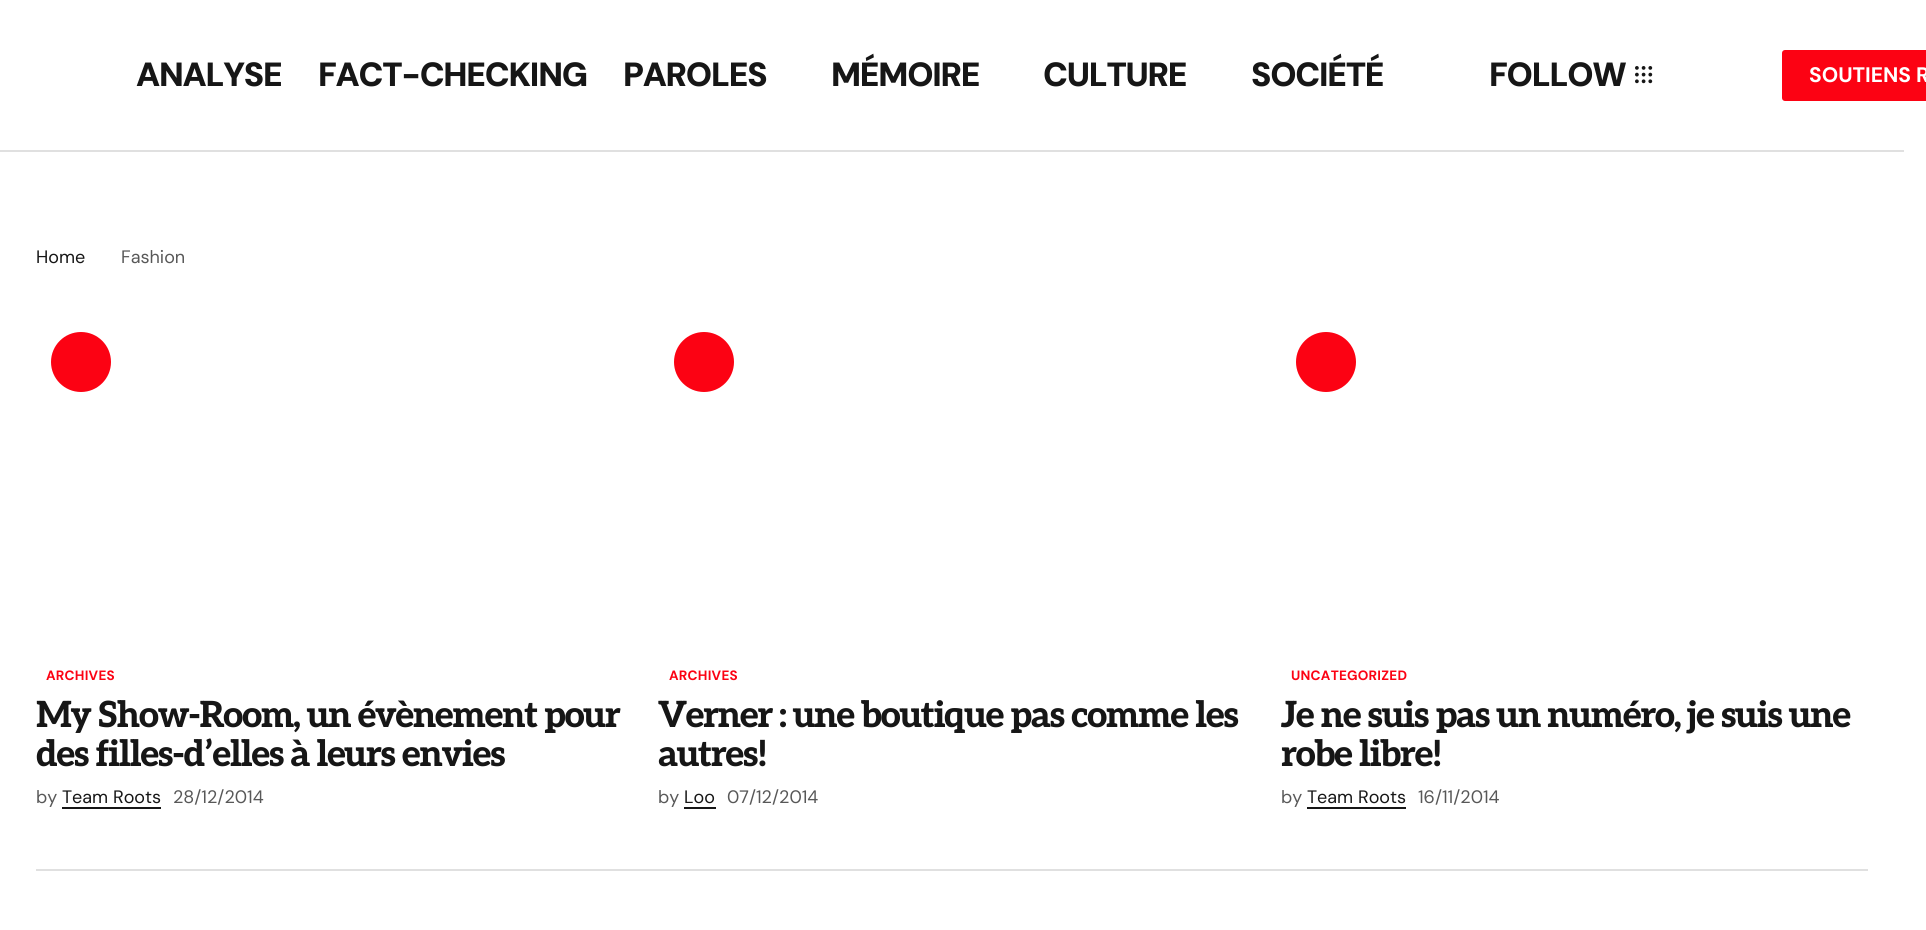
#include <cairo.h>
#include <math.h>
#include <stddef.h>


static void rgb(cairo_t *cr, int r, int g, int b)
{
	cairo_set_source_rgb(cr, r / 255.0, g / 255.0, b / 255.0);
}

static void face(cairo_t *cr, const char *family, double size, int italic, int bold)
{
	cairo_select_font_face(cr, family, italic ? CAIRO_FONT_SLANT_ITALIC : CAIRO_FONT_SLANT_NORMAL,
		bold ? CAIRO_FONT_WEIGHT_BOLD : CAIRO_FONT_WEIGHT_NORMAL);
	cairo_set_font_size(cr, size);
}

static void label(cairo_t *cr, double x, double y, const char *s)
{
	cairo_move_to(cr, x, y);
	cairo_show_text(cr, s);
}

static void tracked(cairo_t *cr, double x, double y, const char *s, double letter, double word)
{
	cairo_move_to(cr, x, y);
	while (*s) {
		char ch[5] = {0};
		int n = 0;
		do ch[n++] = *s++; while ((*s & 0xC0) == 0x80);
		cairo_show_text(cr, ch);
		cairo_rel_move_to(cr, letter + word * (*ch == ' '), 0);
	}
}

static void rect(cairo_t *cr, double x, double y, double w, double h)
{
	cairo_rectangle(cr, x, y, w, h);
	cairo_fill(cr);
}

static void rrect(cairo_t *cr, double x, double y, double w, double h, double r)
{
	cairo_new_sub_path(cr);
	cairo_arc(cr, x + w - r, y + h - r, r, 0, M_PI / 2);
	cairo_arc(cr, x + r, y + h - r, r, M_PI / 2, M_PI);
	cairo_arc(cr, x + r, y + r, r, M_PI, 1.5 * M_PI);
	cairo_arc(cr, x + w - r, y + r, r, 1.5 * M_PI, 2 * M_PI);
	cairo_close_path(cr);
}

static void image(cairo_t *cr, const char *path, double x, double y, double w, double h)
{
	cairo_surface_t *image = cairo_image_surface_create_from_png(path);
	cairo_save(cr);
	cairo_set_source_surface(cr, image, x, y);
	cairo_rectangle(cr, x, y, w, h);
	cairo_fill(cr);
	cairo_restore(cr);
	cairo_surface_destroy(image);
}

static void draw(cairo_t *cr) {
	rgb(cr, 255, 255, 255);
	cairo_paint(cr);
	face(cr, "DM Sans Black", 33.5, 0, 0);
	rgb(cr, 22, 22, 22);
	tracked(cr, 136, 86, "ANALYSE", -1.25, 0);
	tracked(cr, 318, 86, "FACT-CHECKING", -1.25, 0);
	tracked(cr, 623, 86, "PAROLES", -1.25, 0);
	tracked(cr, 831, 86, "MÉMOIRE", -1.25, 0);
	tracked(cr, 1043, 86, "CULTURE", -1.25, 0);
	tracked(cr, 1251, 86, "SOCIÉTÉ", -1.25, 0);
	tracked(cr, 1489, 86, "FOLLOW", -1.25, 0);
	image(cr, "image0.png", 1635, 66, 18, 18);
	rgb(cr, 252, 2, 19);
	rrect(cr, 1782, 50, 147, 51, 3);
	cairo_fill(cr);
	face(cr, "DM Sans", 21, 0, 1);
	rgb(cr, 255, 255, 255);
	label(cr, 1809, 82, "SOUTIENS R");
	rgb(cr, 224, 224, 224);
	rect(cr, 0, 150, 1904, 2);
	face(cr, "DM Sans", 18, 0, 0);
	rgb(cr, 22, 22, 22);
	label(cr, 36, 263, "Home");
	rgb(cr, 88, 88, 88);
	label(cr, 121, 263, "Fashion");
	rgb(cr, 252, 2, 19);
	cairo_new_path(cr);
	cairo_arc(cr, 81, 362, 30, 0, 2 * M_PI);
	cairo_fill(cr);
	face(cr, "DM Sans", 13.5, 0, 1);
	tracked(cr, 46, 680, "ARCHIVES", 0.25, 0);
	face(cr, "Aleo ExtraBold", 36, 0, 0);
	rgb(cr, 22, 22, 22);
	tracked(cr, 36, 727, "My Show-Room, un évènement pour", -1.45, 0);
	tracked(cr, 36, 766, "des filles-d’elles à leurs envies", -1.45, 0);
	face(cr, "DM Sans", 18, 0, 0);
	rgb(cr, 88, 88, 88);
	label(cr, 36, 803, "by");
	rgb(cr, 22, 22, 22);
	rect(cr, 62, 807, 99, 2);
	label(cr, 62, 803, "Team Roots");
	rgb(cr, 88, 88, 88);
	label(cr, 173, 803, "28/12/2014");
	rgb(cr, 252, 2, 19);
	cairo_new_path(cr);
	cairo_arc(cr, 704, 362, 30, 0, 2 * M_PI);
	cairo_fill(cr);
	face(cr, "DM Sans", 13.5, 0, 1);
	tracked(cr, 669, 680, "ARCHIVES", 0.25, 0);
	face(cr, "Aleo ExtraBold", 36, 0, 0);
	rgb(cr, 22, 22, 22);
	tracked(cr, 658, 727, "Verner : une boutique pas comme les", -1.45, 0);
	tracked(cr, 658, 766, "autres!", -1.45, 0);
	face(cr, "DM Sans", 18, 0, 0);
	rgb(cr, 88, 88, 88);
	label(cr, 658, 803, "by");
	rgb(cr, 22, 22, 22);
	rect(cr, 684, 807, 32, 2);
	label(cr, 684, 803, "Loo");
	rgb(cr, 88, 88, 88);
	label(cr, 727, 803, "07/12/2014");
	rgb(cr, 252, 2, 19);
	cairo_new_path(cr);
	cairo_arc(cr, 1326, 362, 30, 0, 2 * M_PI);
	cairo_fill(cr);
	face(cr, "DM Sans", 13.5, 0, 1);
	tracked(cr, 1291, 680, "UNCATEGORIZED", 0.25, 0);
	face(cr, "Aleo ExtraBold", 36, 0, 0);
	rgb(cr, 22, 22, 22);
	tracked(cr, 1281, 727, "Je ne suis pas un numéro, je suis une", -1.45, 0);
	tracked(cr, 1281, 766, "robe libre!", -1.45, 0);
	face(cr, "DM Sans", 18, 0, 0);
	rgb(cr, 88, 88, 88);
	label(cr, 1281, 803, "by");
	rgb(cr, 22, 22, 22);
	rect(cr, 1307, 807, 99, 2);
	label(cr, 1307, 803, "Team Roots");
	rgb(cr, 88, 88, 88);
	label(cr, 1418, 803, "16/11/2014");
	rgb(cr, 224, 224, 224);
	rect(cr, 36, 869, 1832, 2);
}

int main(void) {
	cairo_surface_t *surface = cairo_image_surface_create(CAIRO_FORMAT_RGB24, 1926, 930);
	cairo_t *cr = cairo_create(surface);
	cairo_font_options_t *options = cairo_font_options_create();
	cairo_font_options_set_hint_metrics(options, CAIRO_HINT_METRICS_OFF);
	cairo_font_options_set_hint_style(options, CAIRO_HINT_STYLE_NONE);
	cairo_set_font_options(cr, options);
	cairo_set_miter_limit(cr, 4);
	draw(cr);
	cairo_surface_write_to_png(surface, "render.png");
	cairo_font_options_destroy(options);
	cairo_destroy(cr);
	cairo_surface_destroy(surface);
	return 0;
}
